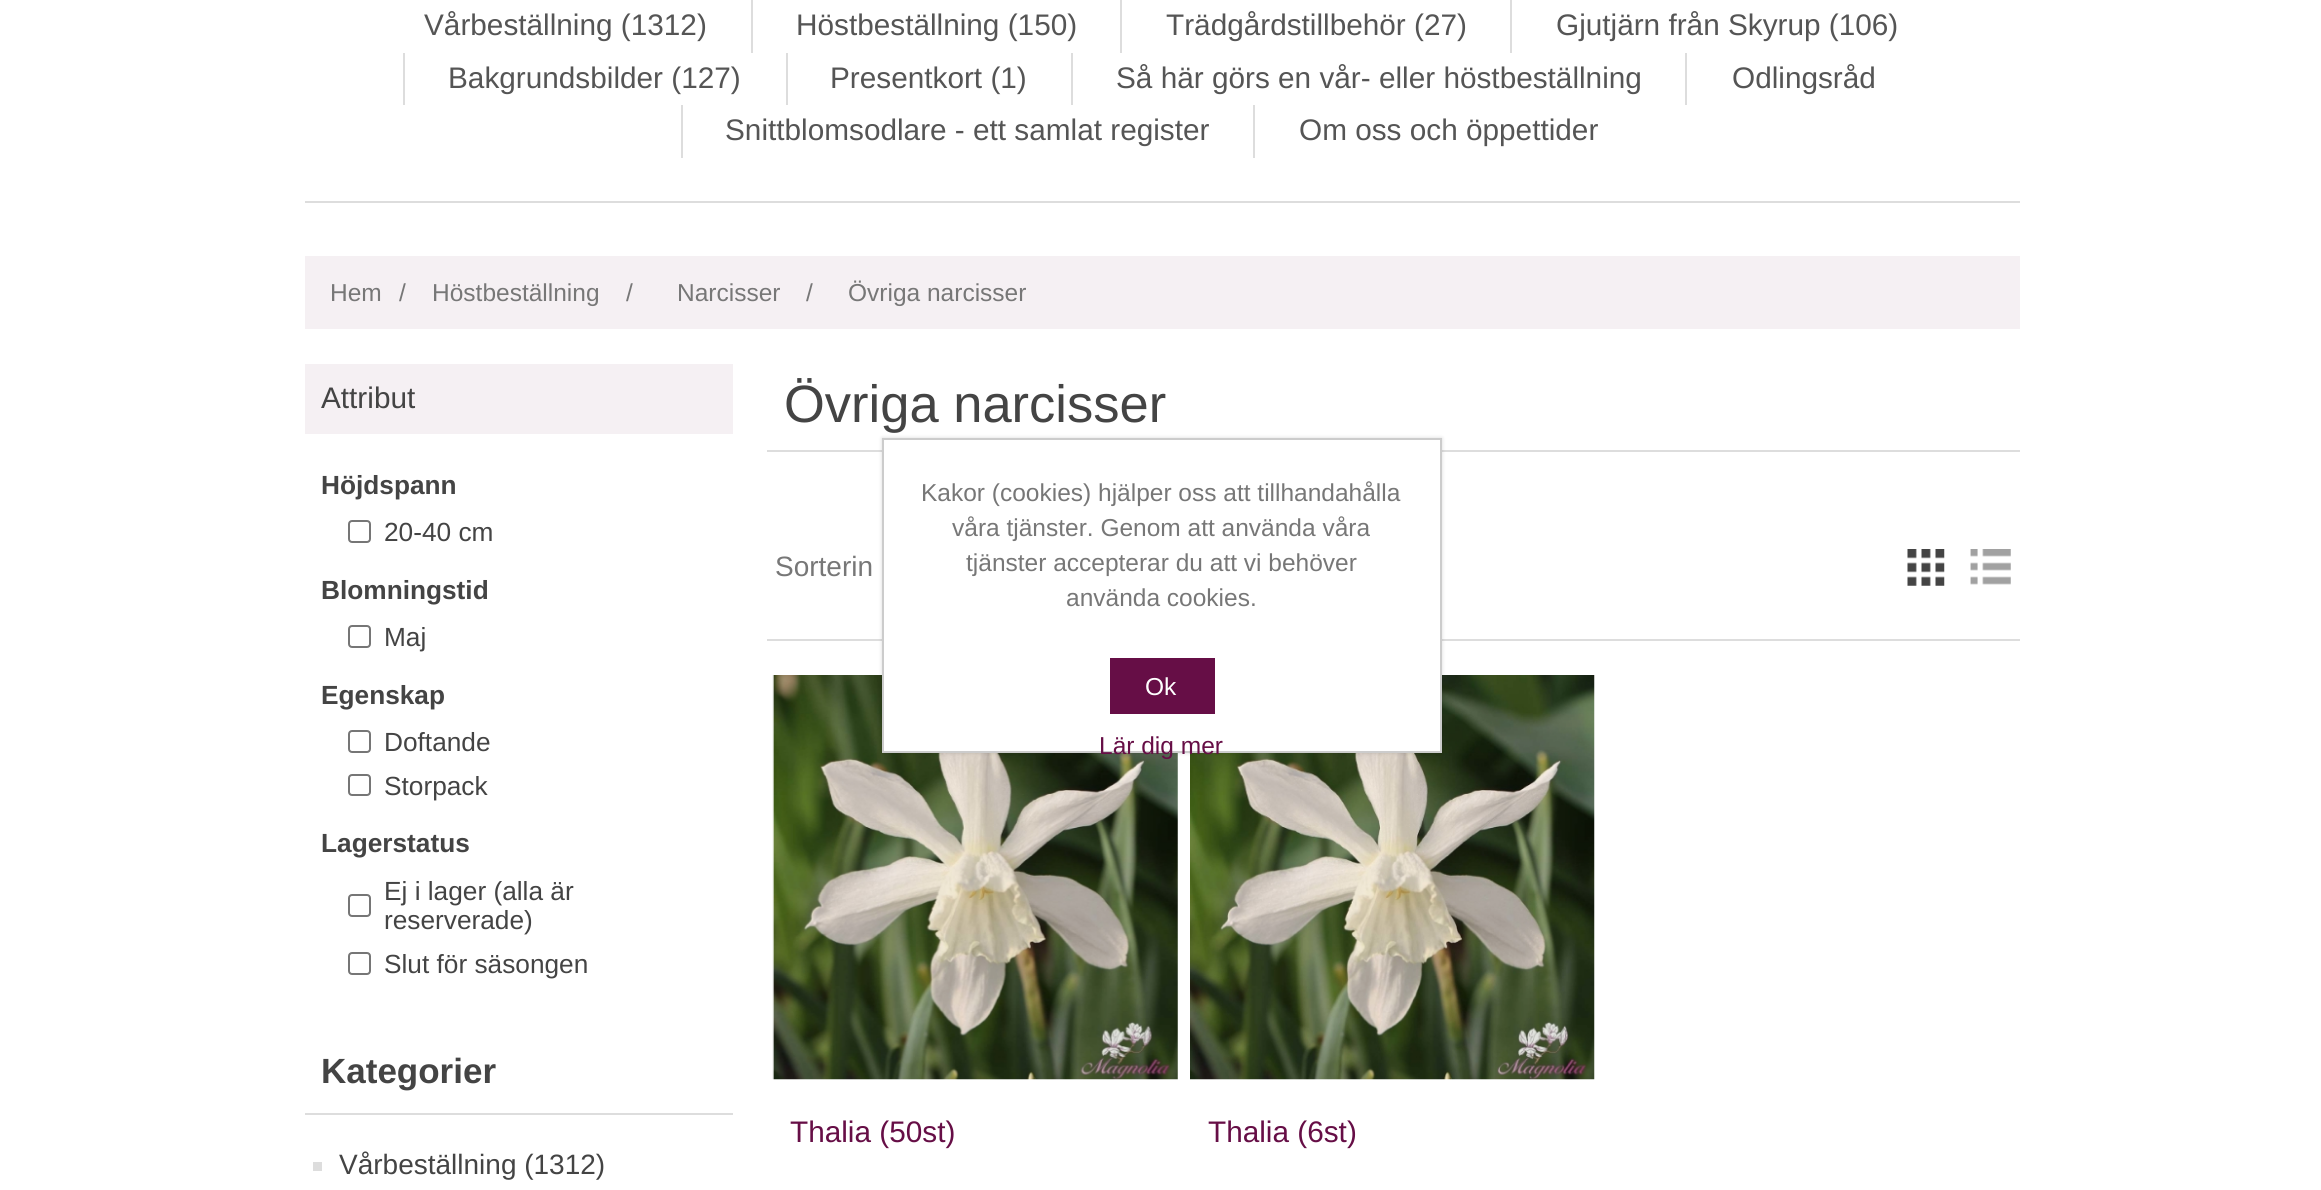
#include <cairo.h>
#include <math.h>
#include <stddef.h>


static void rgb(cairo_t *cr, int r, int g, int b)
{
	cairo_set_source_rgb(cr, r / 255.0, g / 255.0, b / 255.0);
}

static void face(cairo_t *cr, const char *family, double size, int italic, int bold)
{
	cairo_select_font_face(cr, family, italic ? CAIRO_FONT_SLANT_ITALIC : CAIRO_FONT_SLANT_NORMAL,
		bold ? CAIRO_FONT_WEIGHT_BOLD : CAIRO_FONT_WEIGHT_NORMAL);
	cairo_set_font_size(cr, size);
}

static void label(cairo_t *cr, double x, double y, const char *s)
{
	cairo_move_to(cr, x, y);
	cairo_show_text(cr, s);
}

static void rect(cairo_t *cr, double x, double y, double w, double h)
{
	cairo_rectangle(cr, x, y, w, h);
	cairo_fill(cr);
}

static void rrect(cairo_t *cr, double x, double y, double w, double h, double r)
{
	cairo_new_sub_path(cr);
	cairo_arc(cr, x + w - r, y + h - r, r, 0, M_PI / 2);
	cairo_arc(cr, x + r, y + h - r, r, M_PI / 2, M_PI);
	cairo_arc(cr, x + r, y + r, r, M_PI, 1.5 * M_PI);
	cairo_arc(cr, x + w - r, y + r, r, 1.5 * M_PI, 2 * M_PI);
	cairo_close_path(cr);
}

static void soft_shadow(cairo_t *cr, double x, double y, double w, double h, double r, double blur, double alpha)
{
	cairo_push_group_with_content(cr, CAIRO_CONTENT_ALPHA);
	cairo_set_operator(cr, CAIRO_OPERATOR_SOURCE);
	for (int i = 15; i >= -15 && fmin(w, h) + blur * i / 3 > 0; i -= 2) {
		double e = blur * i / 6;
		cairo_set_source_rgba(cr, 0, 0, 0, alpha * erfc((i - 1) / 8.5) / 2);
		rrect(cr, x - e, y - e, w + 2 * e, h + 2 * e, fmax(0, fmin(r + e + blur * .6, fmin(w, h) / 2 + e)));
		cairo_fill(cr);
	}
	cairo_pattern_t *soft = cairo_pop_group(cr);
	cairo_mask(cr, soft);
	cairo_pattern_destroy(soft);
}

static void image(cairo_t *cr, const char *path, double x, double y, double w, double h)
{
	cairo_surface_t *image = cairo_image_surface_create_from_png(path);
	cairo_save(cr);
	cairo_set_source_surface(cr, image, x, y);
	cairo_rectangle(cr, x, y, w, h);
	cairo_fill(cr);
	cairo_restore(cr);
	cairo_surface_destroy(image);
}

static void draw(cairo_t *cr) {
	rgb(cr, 255, 255, 255);
	cairo_paint(cr);
	rgb(cr, 221, 221, 221);
	rect(cr, 305, 201, 1715, 2);
	face(cr, "Liberation Sans", 29.75, 0, 0);
	rgb(cr, 85, 85, 85);
	label(cr, 424, 35, "Vårbeställning (1312)");
	rgb(cr, 221, 221, 221);
	rect(cr, 751, 0, 2, 53);
	rgb(cr, 85, 85, 85);
	label(cr, 796, 35, "Höstbeställning (150)");
	rgb(cr, 221, 221, 221);
	rect(cr, 1120, 0, 2, 53);
	rgb(cr, 85, 85, 85);
	label(cr, 1166, 35, "Trädgårdstillbehör (27)");
	rgb(cr, 221, 221, 221);
	rect(cr, 1510, 0, 2, 53);
	rgb(cr, 85, 85, 85);
	label(cr, 1556, 35, "Gjutjärn från Skyrup (106)");
	rgb(cr, 221, 221, 221);
	rect(cr, 403, 53, 2, 52);
	rgb(cr, 85, 85, 85);
	label(cr, 448, 88, "Bakgrundsbilder (127)");
	rgb(cr, 221, 221, 221);
	rect(cr, 786, 53, 2, 52);
	rgb(cr, 85, 85, 85);
	label(cr, 830, 88, "Presentkort (1)");
	rgb(cr, 221, 221, 221);
	rect(cr, 1071, 53, 2, 52);
	rgb(cr, 85, 85, 85);
	label(cr, 1116, 88, "Så här görs en vår- eller höstbeställning");
	rgb(cr, 221, 221, 221);
	rect(cr, 1685, 53, 2, 52);
	rgb(cr, 85, 85, 85);
	label(cr, 1732, 88, "Odlingsråd");
	rgb(cr, 221, 221, 221);
	rect(cr, 681, 105, 2, 53);
	rgb(cr, 85, 85, 85);
	label(cr, 725, 140, "Snittblomsodlare - ett samlat register");
	rgb(cr, 221, 221, 221);
	rect(cr, 1253, 105, 2, 53);
	rgb(cr, 85, 85, 85);
	label(cr, 1299, 140, "Om oss och öppettider");
	rgb(cr, 245, 240, 243);
	rect(cr, 305, 256, 1715, 73);
	face(cr, "Liberation Sans", 24.5, 0, 0);
	rgb(cr, 119, 119, 119);
	label(cr, 330, 301, "Hem");
	label(cr, 399, 301, "/");
	label(cr, 432, 301, "Höstbeställning");
	label(cr, 626, 301, "/");
	label(cr, 677, 301, "Narcisser");
	label(cr, 806, 301, "/");
	label(cr, 848, 301, "Övriga narcisser");
	rgb(cr, 245, 240, 243);
	rect(cr, 305, 364, 428, 70);
	face(cr, "Liberation Sans", 29.75, 0, 0);
	rgb(cr, 68, 68, 68);
	label(cr, 321, 408, "Attribut");
	face(cr, "Liberation Sans", 26.25, 0, 1);
	label(cr, 321, 494, "Höjdspann");
	rrect(cr, 349, 521, 21, 21, 3);
	rgb(cr, 118, 118, 118);
	cairo_stroke(cr);
	face(cr, "Liberation Sans", 26.25, 0, 0);
	rgb(cr, 68, 68, 68);
	label(cr, 384, 541, "20-40 cm");
	face(cr, "Liberation Sans", 26.25, 0, 1);
	label(cr, 321, 599, "Blomningstid");
	rrect(cr, 349, 626, 21, 21, 3);
	rgb(cr, 118, 118, 118);
	cairo_stroke(cr);
	face(cr, "Liberation Sans", 26.25, 0, 0);
	rgb(cr, 68, 68, 68);
	label(cr, 384, 646, "Maj");
	face(cr, "Liberation Sans", 26.25, 0, 1);
	label(cr, 321, 704, "Egenskap");
	rrect(cr, 349, 731, 21, 21, 3);
	rgb(cr, 118, 118, 118);
	cairo_stroke(cr);
	face(cr, "Liberation Sans", 26.25, 0, 0);
	rgb(cr, 68, 68, 68);
	label(cr, 384, 751, "Doftande");
	rrect(cr, 349, 775, 21, 20, 3);
	rgb(cr, 118, 118, 118);
	cairo_stroke(cr);
	rgb(cr, 68, 68, 68);
	label(cr, 384, 795, "Storpack");
	face(cr, "Liberation Sans", 26.25, 0, 1);
	label(cr, 321, 852, "Lagerstatus");
	rrect(cr, 349, 895, 21, 21, 3);
	rgb(cr, 118, 118, 118);
	cairo_stroke(cr);
	face(cr, "Liberation Sans", 26.25, 0, 0);
	rgb(cr, 68, 68, 68);
	label(cr, 384, 900, "Ej i lager (alla är");
	label(cr, 384, 929, "reserverade)");
	rrect(cr, 349, 953, 21, 21, 3);
	rgb(cr, 118, 118, 118);
	cairo_stroke(cr);
	rgb(cr, 68, 68, 68);
	label(cr, 384, 973, "Slut för säsongen");
	rgb(cr, 221, 221, 221);
	rect(cr, 305, 1113, 428, 2);
	face(cr, "Liberation Sans", 35, 0, 1);
	rgb(cr, 68, 68, 68);
	label(cr, 321, 1083, "Kategorier");
	rgb(cr, 221, 221, 221);
	rect(cr, 313, 1162, 9, 9);
	face(cr, "Liberation Sans", 28, 0, 0);
	rgb(cr, 68, 68, 68);
	label(cr, 339, 1174, "Vårbeställning (1312)");
	rgb(cr, 221, 221, 221);
	rect(cr, 767, 450, 1253, 2);
	face(cr, "Liberation Sans", 52.5, 0, 0);
	rgb(cr, 68, 68, 68);
	label(cr, 784, 422, "Övriga narcisser");
	rgb(cr, 221, 221, 221);
	rect(cr, 767, 639, 1253, 2);
	face(cr, "Liberation Sans", 28, 0, 0);
	rgb(cr, 119, 119, 119);
	label(cr, 775, 576, "Sorterin");
	image(cr, "image0.png", 1907, 549, 38, 37);
	image(cr, "image1.png", 1970, 549, 41, 36);
	image(cr, "image2.png", 772, 675, 406, 405);
	face(cr, "Liberation Sans", 29.75, 0, 0);
	rgb(cr, 102, 14, 70);
	label(cr, 790, 1142, "Thalia (50st)");
	image(cr, "image3.png", 1190, 675, 405, 405);
	label(cr, 1208, 1142, "Thalia (6st)");
	rgb(cr, 0, 0, 0);
	soft_shadow(cr, 882, 438, 560, 315, 0, 2, 0.15);
	rgb(cr, 255, 255, 255);
	cairo_rectangle(cr, 883, 439, 558, 313);
	cairo_fill_preserve(cr);
	rgb(cr, 204, 204, 204);
	cairo_stroke(cr);
	face(cr, "Liberation Sans", 24.5, 0, 0);
	rgb(cr, 119, 119, 119);
	label(cr, 921, 501, "Kakor (cookies) hjälper oss att tillhandahålla");
	label(cr, 952, 536, "våra tjänster. Genom att använda våra");
	label(cr, 966, 571, "tjänster accepterar du att vi behöver");
	label(cr, 1066, 606, "använda cookies.");
	rgb(cr, 102, 14, 70);
	rect(cr, 1110, 658, 105, 56);
	rgb(cr, 255, 255, 255);
	label(cr, 1145, 695, "Ok");
	rgb(cr, 102, 14, 70);
	label(cr, 1099, 754, "Lär dig mer");
}

int main(void) {
	cairo_surface_t *surface = cairo_image_surface_create(CAIRO_FORMAT_RGB24, 2321, 1190);
	cairo_t *cr = cairo_create(surface);
	cairo_font_options_t *options = cairo_font_options_create();
	cairo_font_options_set_hint_metrics(options, CAIRO_HINT_METRICS_OFF);
	cairo_font_options_set_hint_style(options, CAIRO_HINT_STYLE_NONE);
	cairo_set_font_options(cr, options);
	cairo_set_miter_limit(cr, 4);
	draw(cr);
	cairo_surface_write_to_png(surface, "render.png");
	cairo_font_options_destroy(options);
	cairo_destroy(cr);
	cairo_surface_destroy(surface);
	return 0;
}
